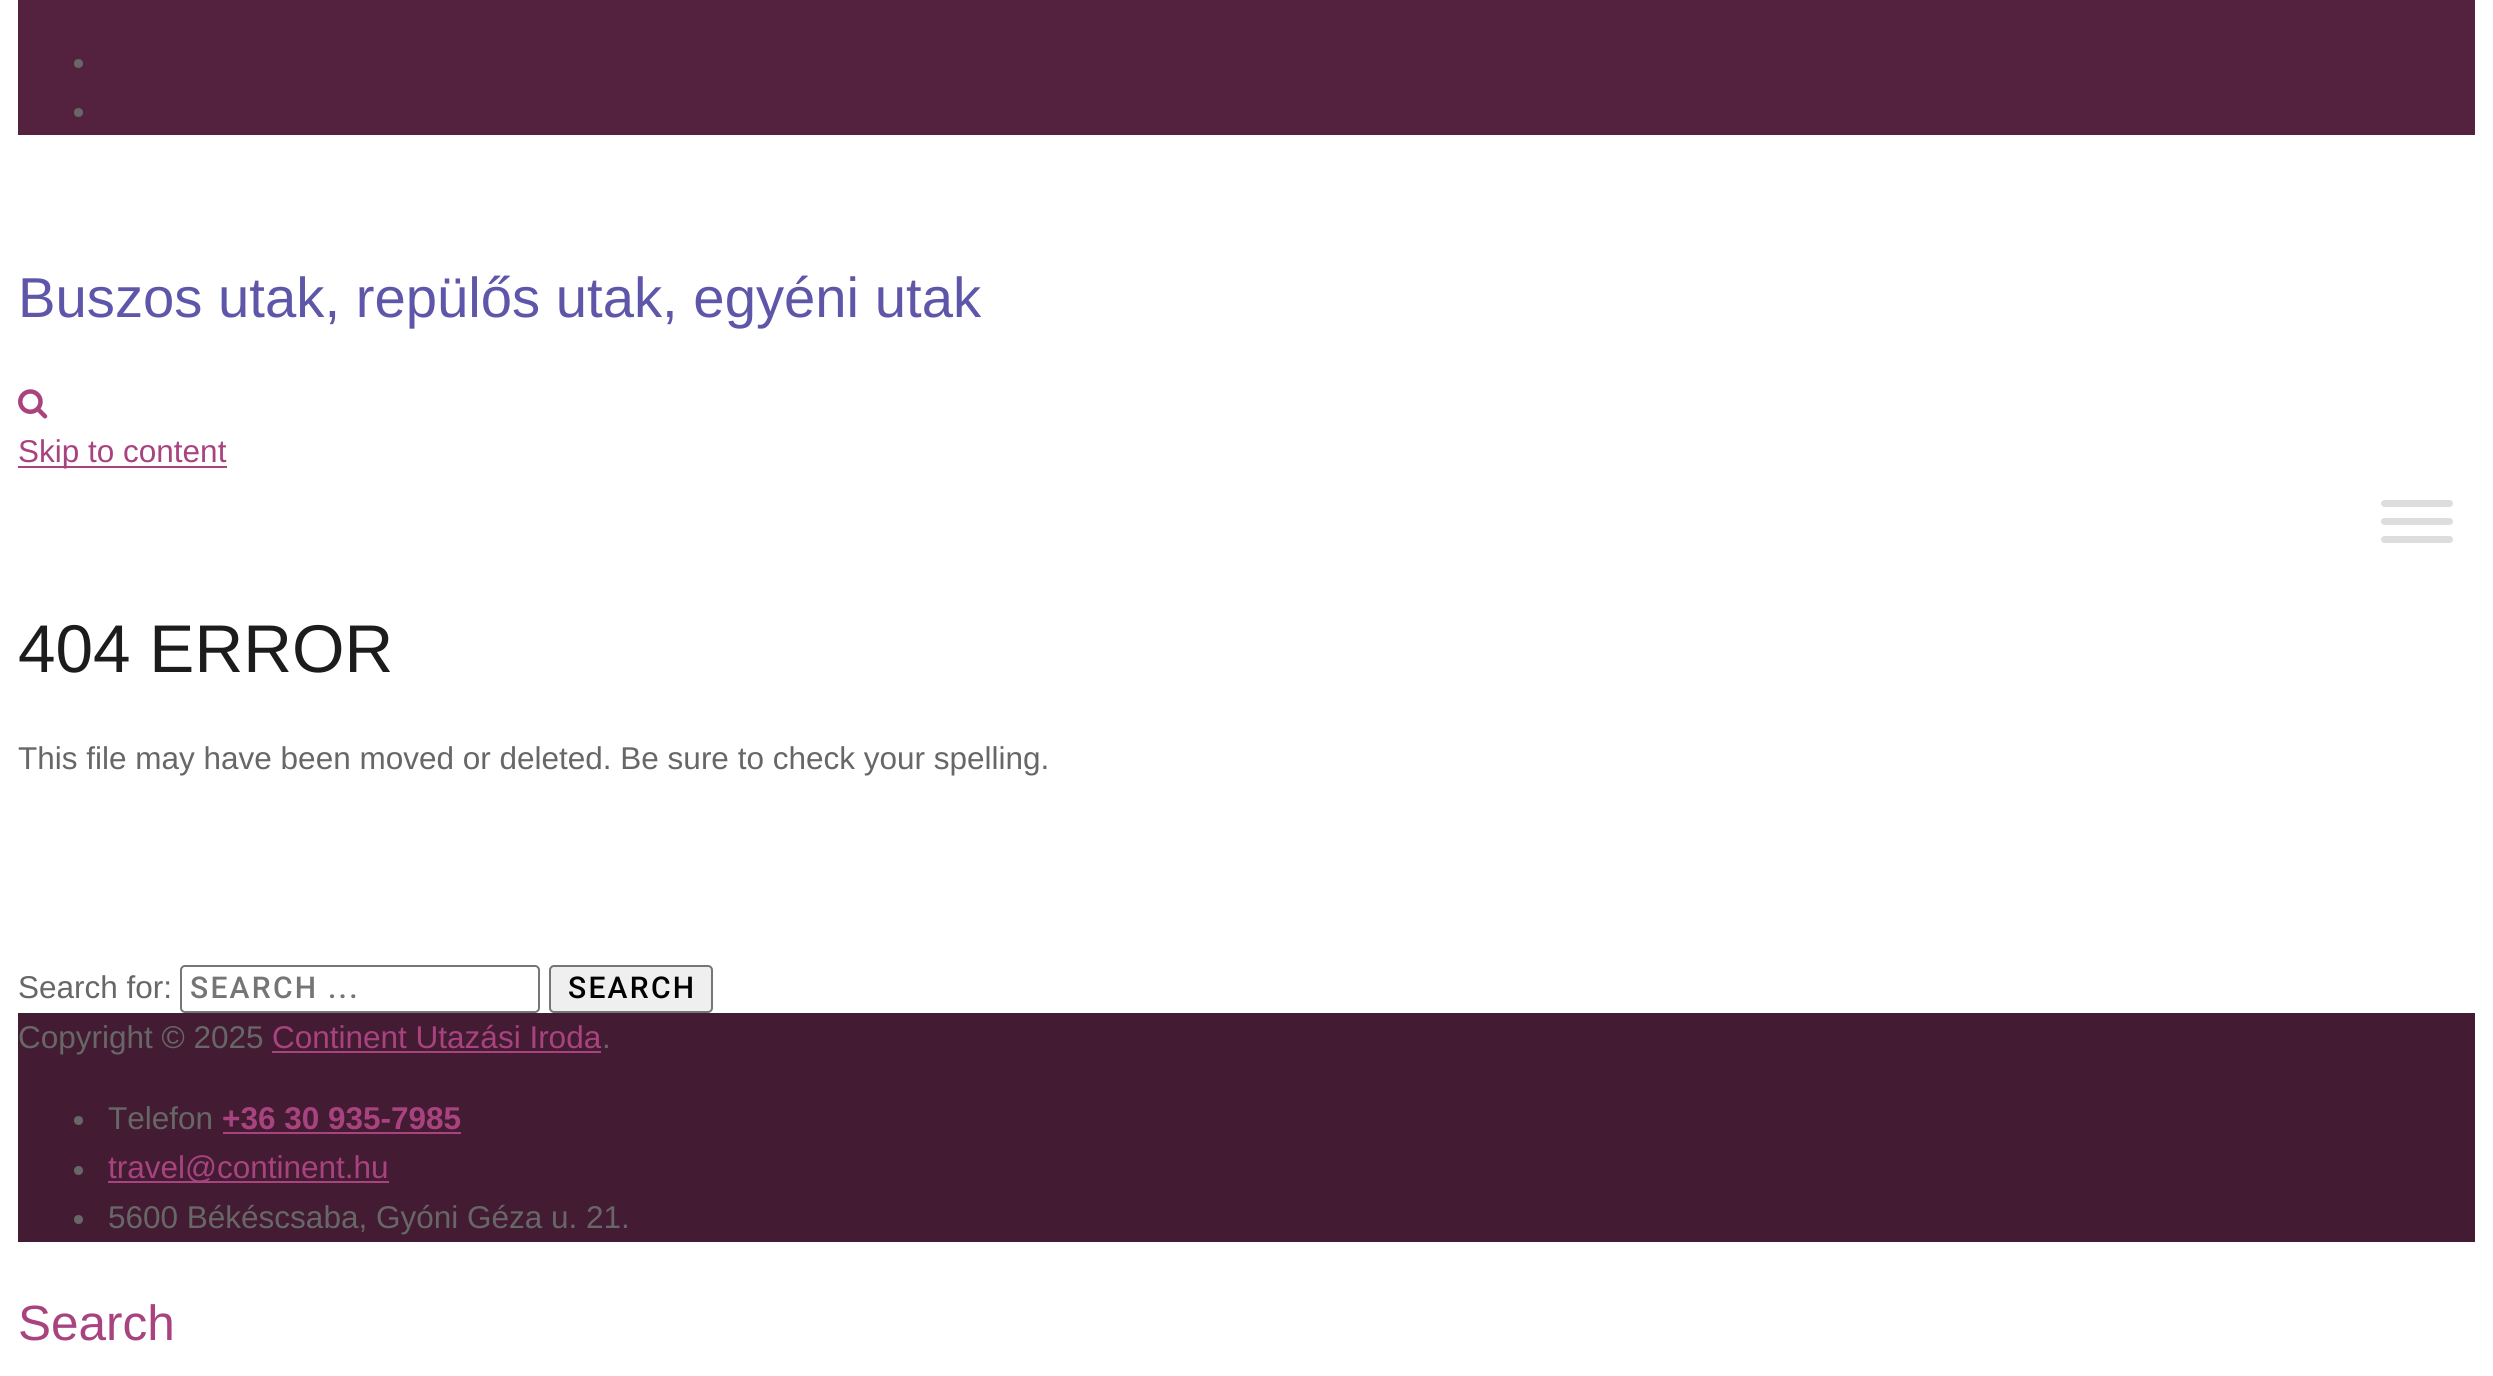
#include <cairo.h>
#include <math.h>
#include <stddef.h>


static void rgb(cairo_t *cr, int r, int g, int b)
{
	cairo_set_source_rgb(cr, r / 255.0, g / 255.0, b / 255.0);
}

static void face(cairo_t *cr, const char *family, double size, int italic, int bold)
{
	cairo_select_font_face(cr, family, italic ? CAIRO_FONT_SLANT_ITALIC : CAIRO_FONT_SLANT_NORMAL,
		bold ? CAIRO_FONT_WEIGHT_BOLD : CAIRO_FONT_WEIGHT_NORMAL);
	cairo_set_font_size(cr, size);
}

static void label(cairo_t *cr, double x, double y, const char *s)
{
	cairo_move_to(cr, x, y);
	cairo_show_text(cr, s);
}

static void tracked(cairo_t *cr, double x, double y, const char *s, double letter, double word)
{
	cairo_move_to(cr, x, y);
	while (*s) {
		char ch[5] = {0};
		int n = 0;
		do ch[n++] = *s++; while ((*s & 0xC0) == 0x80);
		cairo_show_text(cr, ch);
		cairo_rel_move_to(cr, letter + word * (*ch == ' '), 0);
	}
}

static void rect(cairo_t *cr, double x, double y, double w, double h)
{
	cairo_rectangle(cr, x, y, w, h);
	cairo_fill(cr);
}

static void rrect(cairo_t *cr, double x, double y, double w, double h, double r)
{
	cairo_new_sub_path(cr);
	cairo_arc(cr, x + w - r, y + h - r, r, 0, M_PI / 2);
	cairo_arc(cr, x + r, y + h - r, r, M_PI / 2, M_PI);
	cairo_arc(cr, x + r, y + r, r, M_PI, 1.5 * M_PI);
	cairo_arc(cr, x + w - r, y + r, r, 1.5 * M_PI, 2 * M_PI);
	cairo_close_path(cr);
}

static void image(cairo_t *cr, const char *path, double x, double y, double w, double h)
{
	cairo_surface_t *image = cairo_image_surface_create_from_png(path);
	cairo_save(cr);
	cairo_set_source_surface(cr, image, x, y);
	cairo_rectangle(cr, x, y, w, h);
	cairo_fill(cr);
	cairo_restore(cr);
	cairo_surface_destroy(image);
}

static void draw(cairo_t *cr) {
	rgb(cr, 255, 255, 255);
	cairo_paint(cr);
	rgb(cr, 84, 33, 63);
	rect(cr, 18, 0, 2457, 135);
	rgb(cr, 103, 103, 103);
	cairo_arc(cr, 78.5, 63.5, 4.5, 0, 2 * M_PI);
	cairo_fill(cr);
	cairo_arc(cr, 78.5, 112.5, 4.5, 0, 2 * M_PI);
	cairo_fill(cr);
	face(cr, "Liberation Sans", 56.25, 0, 0);
	rgb(cr, 94, 86, 169);
	label(cr, 18, 317, "Buszos utak, repülős utak, egyéni utak");
	image(cr, "image0.png", 18, 389, 30, 30);
	rgb(cr, 168, 67, 127);
	rect(cr, 18, 466, 209, 2);
	face(cr, "Liberation Sans", 31.5, 0, 0);
	label(cr, 18, 462, "Skip to content");
	rgb(cr, 221, 221, 221);
	rrect(cr, 2381, 500, 72, 7, 3.5);
	cairo_fill(cr);
	rrect(cr, 2381, 518, 72, 7, 3.5);
	cairo_fill(cr);
	rrect(cr, 2381, 536, 72, 7, 3.5);
	cairo_fill(cr);
	face(cr, "Liberation Sans", 67.5, 0, 0);
	rgb(cr, 28, 28, 28);
	label(cr, 18, 672, "404 ERROR");
	face(cr, "Liberation Sans", 31.5, 0, 0);
	rgb(cr, 103, 103, 103);
	label(cr, 18, 769, "This file may have been moved or deleted. Be sure to check your spelling.");
	label(cr, 18, 998, "Search for:");
	rrect(cr, 181, 966, 358, 46, 4);
	rgb(cr, 118, 118, 118);
	cairo_stroke(cr);
	face(cr, "Roboto Medium", 30, 0, 0);
	rgb(cr, 117, 117, 117);
	tracked(cr, 190, 998, "SEARCH ...", 2.25, 0);
	rgb(cr, 239, 239, 239);
	rrect(cr, 550, 966, 162, 46, 4);
	cairo_fill_preserve(cr);
	rgb(cr, 118, 118, 118);
	cairo_stroke(cr);
	rgb(cr, 0, 0, 0);
	tracked(cr, 568, 998, "SEARCH", 2.25, 0);
	rgb(cr, 67, 27, 50);
	rect(cr, 18, 1013, 2457, 229);
	face(cr, "Liberation Sans", 31.5, 0, 0);
	rgb(cr, 103, 103, 103);
	label(cr, 18, 1048, "Copyright © 2025");
	rgb(cr, 168, 67, 127);
	label(cr, 272, 1048, "Continent Utazási Iroda");
	rect(cr, 272, 1051, 329, 2);
	rgb(cr, 103, 103, 103);
	label(cr, 602, 1048, ".");
	cairo_new_path(cr);
	cairo_arc(cr, 78.5, 1120.5, 4.5, 0, 2 * M_PI);
	cairo_fill(cr);
	label(cr, 108, 1129, "Telefon");
	face(cr, "Liberation Sans", 31.5, 0, 1);
	rgb(cr, 168, 67, 127);
	label(cr, 222, 1129, "+36 30 935-7985");
	rect(cr, 223, 1132, 238, 2);
	rgb(cr, 103, 103, 103);
	cairo_new_path(cr);
	cairo_arc(cr, 78.5, 1170.5, 4.5, 0, 2 * M_PI);
	cairo_fill(cr);
	rgb(cr, 168, 67, 127);
	rect(cr, 108, 1181, 281, 2);
	face(cr, "Liberation Sans", 31.5, 0, 0);
	label(cr, 108, 1178, "travel@continent.hu");
	rgb(cr, 103, 103, 103);
	cairo_new_path(cr);
	cairo_arc(cr, 78.5, 1219.5, 4.5, 0, 2 * M_PI);
	cairo_fill(cr);
	label(cr, 108, 1228, "5600 Békéscsaba, Gyóni Géza u. 21.");
	face(cr, "Liberation Sans", 49.5, 0, 0);
	rgb(cr, 168, 67, 127);
	label(cr, 18, 1340, "Search");
}

int main(void) {
	cairo_surface_t *surface = cairo_image_surface_create(CAIRO_FORMAT_RGB24, 2493, 1376);
	cairo_t *cr = cairo_create(surface);
	cairo_font_options_t *options = cairo_font_options_create();
	cairo_font_options_set_hint_metrics(options, CAIRO_HINT_METRICS_OFF);
	cairo_font_options_set_hint_style(options, CAIRO_HINT_STYLE_NONE);
	cairo_set_font_options(cr, options);
	cairo_set_miter_limit(cr, 4);
	draw(cr);
	cairo_surface_write_to_png(surface, "render.png");
	cairo_font_options_destroy(options);
	cairo_destroy(cr);
	cairo_surface_destroy(surface);
	return 0;
}
